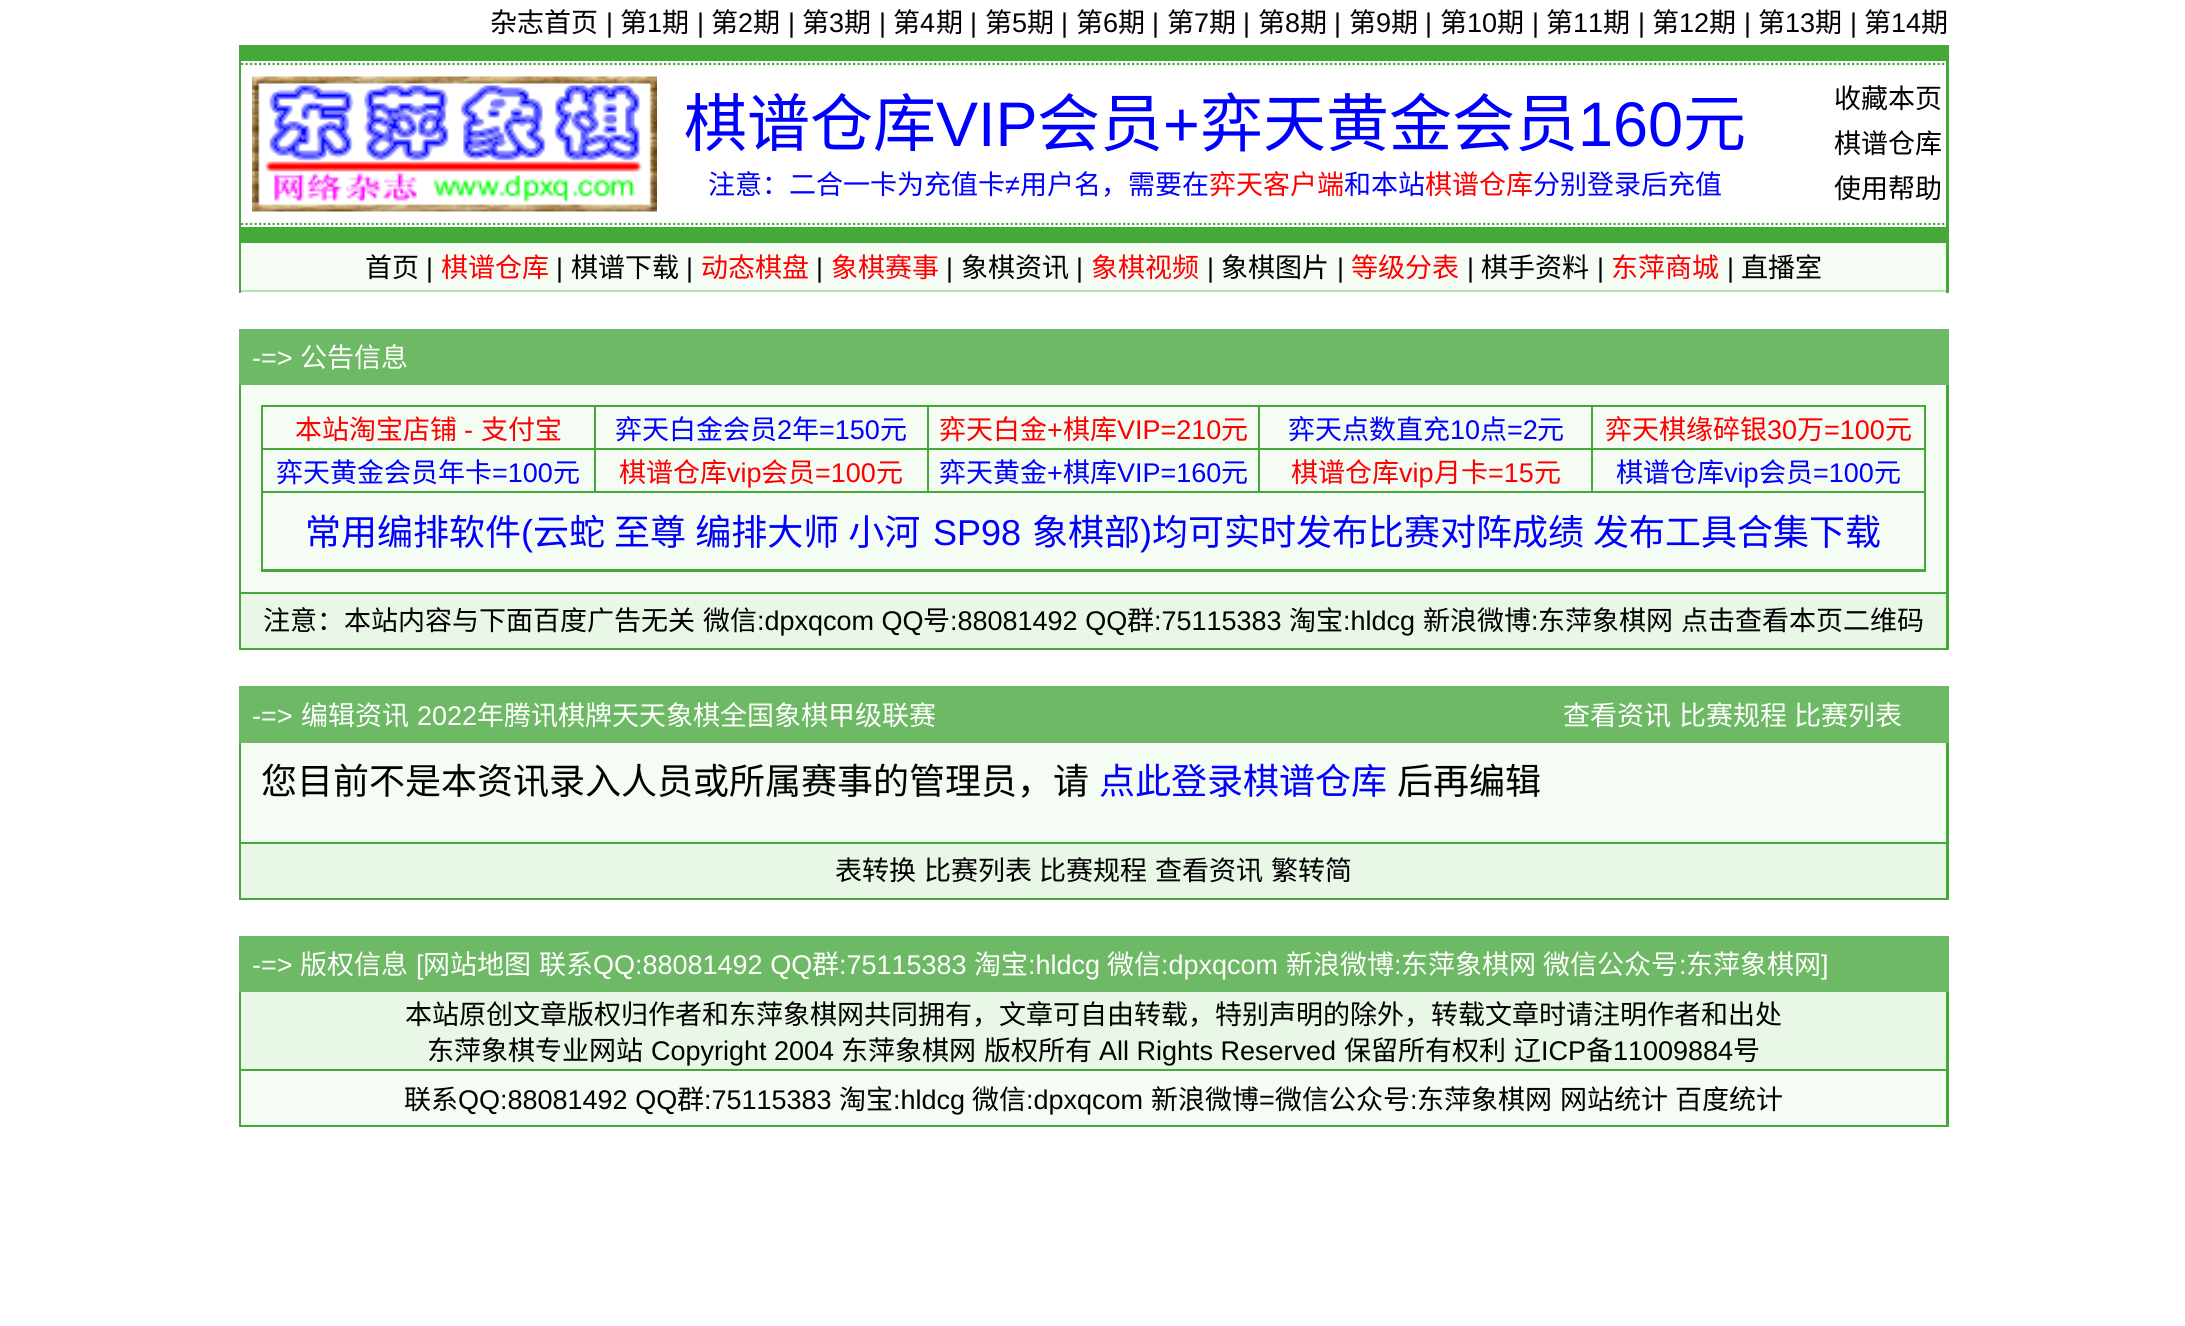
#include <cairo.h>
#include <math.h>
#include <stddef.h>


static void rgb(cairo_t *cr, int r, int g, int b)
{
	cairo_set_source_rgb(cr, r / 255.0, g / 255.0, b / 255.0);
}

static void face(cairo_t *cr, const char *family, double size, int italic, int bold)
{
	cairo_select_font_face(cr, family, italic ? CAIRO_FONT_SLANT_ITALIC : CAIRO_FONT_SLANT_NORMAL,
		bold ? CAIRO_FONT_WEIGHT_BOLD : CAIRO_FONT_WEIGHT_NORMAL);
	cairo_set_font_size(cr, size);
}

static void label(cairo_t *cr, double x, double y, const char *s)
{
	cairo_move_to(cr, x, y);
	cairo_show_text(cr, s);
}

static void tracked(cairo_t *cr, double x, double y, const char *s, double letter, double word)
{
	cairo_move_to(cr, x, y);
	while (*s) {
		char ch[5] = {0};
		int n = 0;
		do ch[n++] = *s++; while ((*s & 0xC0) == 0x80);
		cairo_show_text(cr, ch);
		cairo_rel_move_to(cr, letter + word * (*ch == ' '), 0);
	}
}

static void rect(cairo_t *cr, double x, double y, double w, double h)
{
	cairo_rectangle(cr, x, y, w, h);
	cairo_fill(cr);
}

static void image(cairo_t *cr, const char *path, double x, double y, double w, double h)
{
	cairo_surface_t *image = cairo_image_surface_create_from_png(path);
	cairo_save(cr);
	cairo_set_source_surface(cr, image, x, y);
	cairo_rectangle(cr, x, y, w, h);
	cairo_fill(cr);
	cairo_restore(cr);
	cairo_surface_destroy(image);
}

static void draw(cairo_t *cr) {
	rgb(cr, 255, 255, 255);
	cairo_paint(cr);
	face(cr, "Noto Sans CJK SC", 27, 0, 0);
	rgb(cr, 0, 0, 0);
	label(cr, 490, 32, "杂志首页");
	face(cr, "Liberation Sans", 27, 0, 0);
	label(cr, 606, 32, "|");
	face(cr, "Noto Sans CJK SC", 27, 0, 0);
	label(cr, 620, 32, "第");
	face(cr, "Liberation Sans", 27, 0, 0);
	label(cr, 647, 32, "1");
	face(cr, "Noto Sans CJK SC", 27, 0, 0);
	label(cr, 662, 32, "期");
	face(cr, "Liberation Sans", 27, 0, 0);
	label(cr, 697, 32, "|");
	face(cr, "Noto Sans CJK SC", 27, 0, 0);
	label(cr, 711, 32, "第");
	face(cr, "Liberation Sans", 27, 0, 0);
	label(cr, 738, 32, "2");
	face(cr, "Noto Sans CJK SC", 27, 0, 0);
	label(cr, 753, 32, "期");
	face(cr, "Liberation Sans", 27, 0, 0);
	label(cr, 788, 32, "|");
	face(cr, "Noto Sans CJK SC", 27, 0, 0);
	label(cr, 802, 32, "第");
	face(cr, "Liberation Sans", 27, 0, 0);
	label(cr, 829, 32, "3");
	face(cr, "Noto Sans CJK SC", 27, 0, 0);
	label(cr, 844, 32, "期");
	face(cr, "Liberation Sans", 27, 0, 0);
	label(cr, 879, 32, "|");
	face(cr, "Noto Sans CJK SC", 27, 0, 0);
	label(cr, 893, 32, "第");
	face(cr, "Liberation Sans", 27, 0, 0);
	label(cr, 920, 32, "4");
	face(cr, "Noto Sans CJK SC", 27, 0, 0);
	label(cr, 936, 32, "期");
	face(cr, "Liberation Sans", 27, 0, 0);
	label(cr, 970, 32, "|");
	face(cr, "Noto Sans CJK SC", 27, 0, 0);
	label(cr, 985, 32, "第");
	face(cr, "Liberation Sans", 27, 0, 0);
	label(cr, 1012, 32, "5");
	face(cr, "Noto Sans CJK SC", 27, 0, 0);
	label(cr, 1027, 32, "期");
	face(cr, "Liberation Sans", 27, 0, 0);
	label(cr, 1061, 32, "|");
	face(cr, "Noto Sans CJK SC", 27, 0, 0);
	label(cr, 1076, 32, "第");
	face(cr, "Liberation Sans", 27, 0, 0);
	label(cr, 1103, 32, "6");
	face(cr, "Noto Sans CJK SC", 27, 0, 0);
	label(cr, 1118, 32, "期");
	face(cr, "Liberation Sans", 27, 0, 0);
	label(cr, 1152, 32, "|");
	face(cr, "Noto Sans CJK SC", 27, 0, 0);
	label(cr, 1167, 32, "第");
	face(cr, "Liberation Sans", 27, 0, 0);
	label(cr, 1194, 32, "7");
	face(cr, "Noto Sans CJK SC", 27, 0, 0);
	label(cr, 1209, 32, "期");
	face(cr, "Liberation Sans", 27, 0, 0);
	label(cr, 1243, 32, "|");
	face(cr, "Noto Sans CJK SC", 27, 0, 0);
	label(cr, 1258, 32, "第");
	face(cr, "Liberation Sans", 27, 0, 0);
	label(cr, 1285, 32, "8");
	face(cr, "Noto Sans CJK SC", 27, 0, 0);
	label(cr, 1300, 32, "期");
	face(cr, "Liberation Sans", 27, 0, 0);
	label(cr, 1334, 32, "|");
	face(cr, "Noto Sans CJK SC", 27, 0, 0);
	label(cr, 1349, 32, "第");
	face(cr, "Liberation Sans", 27, 0, 0);
	label(cr, 1376, 32, "9");
	face(cr, "Noto Sans CJK SC", 27, 0, 0);
	label(cr, 1391, 32, "期");
	face(cr, "Liberation Sans", 27, 0, 0);
	label(cr, 1425, 32, "|");
	face(cr, "Noto Sans CJK SC", 27, 0, 0);
	label(cr, 1440, 32, "第");
	face(cr, "Liberation Sans", 27, 0, 0);
	label(cr, 1467, 32, "10");
	face(cr, "Noto Sans CJK SC", 27, 0, 0);
	label(cr, 1497, 32, "期");
	face(cr, "Liberation Sans", 27, 0, 0);
	label(cr, 1532, 32, "|");
	face(cr, "Noto Sans CJK SC", 27, 0, 0);
	label(cr, 1546, 32, "第");
	face(cr, "Liberation Sans", 27, 0, 0);
	label(cr, 1573, 32, "11");
	face(cr, "Noto Sans CJK SC", 27, 0, 0);
	label(cr, 1603, 32, "期");
	face(cr, "Liberation Sans", 27, 0, 0);
	label(cr, 1638, 32, "|");
	face(cr, "Noto Sans CJK SC", 27, 0, 0);
	label(cr, 1652, 32, "第");
	face(cr, "Liberation Sans", 27, 0, 0);
	label(cr, 1679, 32, "12");
	face(cr, "Noto Sans CJK SC", 27, 0, 0);
	label(cr, 1709, 32, "期");
	face(cr, "Liberation Sans", 27, 0, 0);
	label(cr, 1744, 32, "|");
	face(cr, "Noto Sans CJK SC", 27, 0, 0);
	label(cr, 1758, 32, "第");
	face(cr, "Liberation Sans", 27, 0, 0);
	label(cr, 1785, 32, "13");
	face(cr, "Noto Sans CJK SC", 27, 0, 0);
	label(cr, 1815, 32, "期");
	face(cr, "Liberation Sans", 27, 0, 0);
	label(cr, 1850, 32, "|");
	face(cr, "Noto Sans CJK SC", 27, 0, 0);
	label(cr, 1864, 32, "第");
	face(cr, "Liberation Sans", 27, 0, 0);
	label(cr, 1891, 32, "14");
	face(cr, "Noto Sans CJK SC", 27, 0, 0);
	label(cr, 1921, 32, "期");
	rgb(cr, 68, 169, 56);
	rect(cr, 239, 45, 1710, 248);
	rgb(cr, 255, 255, 255);
	rect(cr, 241, 61, 1705, 164);
	image(cr, "image0.png", 252, 76, 405, 136);
	cairo_new_path(cr);
	cairo_move_to(cr, 241, 64);
	cairo_line_to(cr, 1946, 64);
	rgb(cr, 68, 169, 56);
	cairo_set_line_width(cr, 2.2);
	cairo_set_dash(cr, (double[]){2.25, 2.25}, 2, 0);
	cairo_stroke(cr);
	cairo_new_path(cr);
	cairo_move_to(cr, 241, 224);
	cairo_line_to(cr, 1946, 224);
	cairo_stroke(cr);
	face(cr, "Noto Sans CJK SC", 63, 0, 0);
	rgb(cr, 0, 0, 255);
	label(cr, 684, 146, "棋谱仓库");
	face(cr, "Liberation Sans", 63, 0, 0);
	label(cr, 936, 146, "VIP");
	face(cr, "Noto Sans CJK SC", 63, 0, 0);
	label(cr, 1037, 146, "会员");
	face(cr, "Liberation Sans", 63, 0, 0);
	label(cr, 1163, 146, "+");
	face(cr, "Noto Sans CJK SC", 63, 0, 0);
	label(cr, 1200, 146, "弈天黄金会员");
	face(cr, "Liberation Sans", 63, 0, 0);
	label(cr, 1578, 146, "160");
	face(cr, "Noto Sans CJK SC", 63, 0, 0);
	label(cr, 1683, 146, "元");
	face(cr, "Noto Sans CJK SC", 27, 0, 0);
	label(cr, 708, 194, "注意：二合一卡为充值卡");
	face(cr, "Liberation Sans", 27, 0, 0);
	label(cr, 1005, 194, "≠");
	face(cr, "Noto Sans CJK SC", 27, 0, 0);
	label(cr, 1020, 194, "用户名，需要在");
	rgb(cr, 255, 0, 0);
	label(cr, 1209, 194, "弈天客户端");
	rgb(cr, 0, 0, 255);
	label(cr, 1344, 194, "和本站");
	rgb(cr, 255, 0, 0);
	label(cr, 1425, 194, "棋谱仓库");
	rgb(cr, 0, 0, 255);
	label(cr, 1533, 194, "分别登录后充值");
	rgb(cr, 0, 0, 0);
	label(cr, 1834, 108, "收藏本页");
	label(cr, 1834, 153, "棋谱仓库");
	label(cr, 1834, 198, "使用帮助");
	rgb(cr, 255, 255, 255);
	rect(cr, 241, 225, 1705, 2);
	rgb(cr, 244, 252, 243);
	rect(cr, 241, 243, 1705, 50);
	rgb(cr, 185, 223, 180);
	rect(cr, 241, 290, 1705, 2);
	rgb(cr, 0, 0, 0);
	label(cr, 365, 277, "首页");
	face(cr, "Liberation Sans", 27, 0, 0);
	label(cr, 426, 277, "|");
	face(cr, "Noto Sans CJK SC", 27, 0, 0);
	rgb(cr, 255, 0, 0);
	label(cr, 441, 277, "棋谱仓库");
	face(cr, "Liberation Sans", 27, 0, 0);
	rgb(cr, 0, 0, 0);
	label(cr, 556, 277, "|");
	face(cr, "Noto Sans CJK SC", 27, 0, 0);
	label(cr, 571, 277, "棋谱下载");
	face(cr, "Liberation Sans", 27, 0, 0);
	label(cr, 686, 277, "|");
	face(cr, "Noto Sans CJK SC", 27, 0, 0);
	rgb(cr, 255, 0, 0);
	label(cr, 701, 277, "动态棋盘");
	face(cr, "Liberation Sans", 27, 0, 0);
	rgb(cr, 0, 0, 0);
	label(cr, 816, 277, "|");
	face(cr, "Noto Sans CJK SC", 27, 0, 0);
	rgb(cr, 255, 0, 0);
	label(cr, 831, 277, "象棋赛事");
	face(cr, "Liberation Sans", 27, 0, 0);
	rgb(cr, 0, 0, 0);
	label(cr, 946, 277, "|");
	face(cr, "Noto Sans CJK SC", 27, 0, 0);
	label(cr, 961, 277, "象棋资讯");
	face(cr, "Liberation Sans", 27, 0, 0);
	label(cr, 1076, 277, "|");
	face(cr, "Noto Sans CJK SC", 27, 0, 0);
	rgb(cr, 255, 0, 0);
	label(cr, 1091, 277, "象棋视频");
	face(cr, "Liberation Sans", 27, 0, 0);
	rgb(cr, 0, 0, 0);
	label(cr, 1207, 277, "|");
	face(cr, "Noto Sans CJK SC", 27, 0, 0);
	label(cr, 1221, 277, "象棋图片");
	face(cr, "Liberation Sans", 27, 0, 0);
	label(cr, 1337, 277, "|");
	face(cr, "Noto Sans CJK SC", 27, 0, 0);
	rgb(cr, 255, 0, 0);
	label(cr, 1351, 277, "等级分表");
	face(cr, "Liberation Sans", 27, 0, 0);
	rgb(cr, 0, 0, 0);
	label(cr, 1467, 277, "|");
	face(cr, "Noto Sans CJK SC", 27, 0, 0);
	label(cr, 1481, 277, "棋手资料");
	face(cr, "Liberation Sans", 27, 0, 0);
	label(cr, 1597, 277, "|");
	face(cr, "Noto Sans CJK SC", 27, 0, 0);
	rgb(cr, 255, 0, 0);
	label(cr, 1611, 277, "东萍商城");
	face(cr, "Liberation Sans", 27, 0, 0);
	rgb(cr, 0, 0, 0);
	label(cr, 1727, 277, "|");
	face(cr, "Noto Sans CJK SC", 27, 0, 0);
	label(cr, 1741, 277, "直播室");
	rgb(cr, 68, 169, 56);
	rect(cr, 239, 385, 1710, 265);
	rgb(cr, 110, 185, 102);
	rect(cr, 239, 329, 1710, 56);
	face(cr, "Liberation Sans", 27, 0, 0);
	rgb(cr, 255, 255, 254);
	label(cr, 252, 367, "-=>");
	face(cr, "Noto Sans CJK SC", 27, 0, 0);
	label(cr, 300, 367, "公告信息");
	rgb(cr, 244, 252, 243);
	rect(cr, 241, 385, 1705, 207);
	rgb(cr, 68, 169, 56);
	rect(cr, 261, 405, 1665, 167);
	rgb(cr, 244, 252, 243);
	rect(cr, 263, 407, 331, 41);
	rgb(cr, 255, 0, 0);
	label(cr, 295, 439, "本站淘宝店铺");
	face(cr, "Liberation Sans", 27, 0, 0);
	label(cr, 464, 439, "-");
	face(cr, "Noto Sans CJK SC", 27, 0, 0);
	label(cr, 481, 439, "支付宝");
	rgb(cr, 244, 252, 243);
	rect(cr, 596, 407, 331, 41);
	rgb(cr, 0, 0, 255);
	label(cr, 615, 439, "弈天白金会员");
	face(cr, "Liberation Sans", 27, 0, 0);
	label(cr, 777, 439, "2");
	face(cr, "Noto Sans CJK SC", 27, 0, 0);
	label(cr, 792, 439, "年");
	face(cr, "Liberation Sans", 27, 0, 0);
	label(cr, 819, 439, "=150");
	face(cr, "Noto Sans CJK SC", 27, 0, 0);
	label(cr, 880, 439, "元");
	rgb(cr, 244, 252, 243);
	rect(cr, 929, 407, 329, 41);
	rgb(cr, 255, 0, 0);
	label(cr, 939, 439, "弈天白金");
	face(cr, "Liberation Sans", 27, 0, 0);
	label(cr, 1047, 439, "+");
	face(cr, "Noto Sans CJK SC", 27, 0, 0);
	label(cr, 1063, 439, "棋库");
	face(cr, "Liberation Sans", 27, 0, 0);
	label(cr, 1117, 439, "VIP=210");
	face(cr, "Noto Sans CJK SC", 27, 0, 0);
	label(cr, 1221, 439, "元");
	rgb(cr, 244, 252, 243);
	rect(cr, 1260, 407, 331, 41);
	rgb(cr, 0, 0, 255);
	label(cr, 1288, 439, "弈天点数直充");
	face(cr, "Liberation Sans", 27, 0, 0);
	label(cr, 1450, 439, "10");
	face(cr, "Noto Sans CJK SC", 27, 0, 0);
	label(cr, 1480, 439, "点");
	face(cr, "Liberation Sans", 27, 0, 0);
	label(cr, 1507, 439, "=2");
	face(cr, "Noto Sans CJK SC", 27, 0, 0);
	label(cr, 1537, 439, "元");
	rgb(cr, 244, 252, 243);
	rect(cr, 1593, 407, 331, 41);
	rgb(cr, 255, 0, 0);
	label(cr, 1605, 439, "弈天棋缘碎银");
	face(cr, "Liberation Sans", 27, 0, 0);
	label(cr, 1767, 439, "30");
	face(cr, "Noto Sans CJK SC", 27, 0, 0);
	label(cr, 1797, 439, "万");
	face(cr, "Liberation Sans", 27, 0, 0);
	label(cr, 1824, 439, "=100");
	face(cr, "Noto Sans CJK SC", 27, 0, 0);
	label(cr, 1885, 439, "元");
	rgb(cr, 244, 252, 243);
	rect(cr, 263, 450, 331, 41);
	rgb(cr, 0, 0, 255);
	label(cr, 276, 482, "弈天黄金会员年卡");
	face(cr, "Liberation Sans", 27, 0, 0);
	label(cr, 492, 482, "=100");
	face(cr, "Noto Sans CJK SC", 27, 0, 0);
	label(cr, 553, 482, "元");
	rgb(cr, 244, 252, 243);
	rect(cr, 596, 450, 331, 41);
	rgb(cr, 255, 0, 0);
	label(cr, 619, 482, "棋谱仓库");
	face(cr, "Liberation Sans", 27, 0, 0);
	label(cr, 727, 482, "vip");
	face(cr, "Noto Sans CJK SC", 27, 0, 0);
	label(cr, 761, 482, "会员");
	face(cr, "Liberation Sans", 27, 0, 0);
	label(cr, 815, 482, "=100");
	face(cr, "Noto Sans CJK SC", 27, 0, 0);
	label(cr, 876, 482, "元");
	rgb(cr, 244, 252, 243);
	rect(cr, 929, 450, 329, 41);
	rgb(cr, 0, 0, 255);
	label(cr, 939, 482, "弈天黄金");
	face(cr, "Liberation Sans", 27, 0, 0);
	label(cr, 1047, 482, "+");
	face(cr, "Noto Sans CJK SC", 27, 0, 0);
	label(cr, 1063, 482, "棋库");
	face(cr, "Liberation Sans", 27, 0, 0);
	label(cr, 1117, 482, "VIP=160");
	face(cr, "Noto Sans CJK SC", 27, 0, 0);
	label(cr, 1221, 482, "元");
	rgb(cr, 244, 252, 243);
	rect(cr, 1260, 450, 331, 41);
	rgb(cr, 255, 0, 0);
	label(cr, 1291, 482, "棋谱仓库");
	face(cr, "Liberation Sans", 27, 0, 0);
	label(cr, 1399, 482, "vip");
	face(cr, "Noto Sans CJK SC", 27, 0, 0);
	label(cr, 1434, 482, "月卡");
	face(cr, "Liberation Sans", 27, 0, 0);
	label(cr, 1488, 482, "=15");
	face(cr, "Noto Sans CJK SC", 27, 0, 0);
	label(cr, 1534, 482, "元");
	rgb(cr, 244, 252, 243);
	rect(cr, 1593, 450, 331, 41);
	rgb(cr, 0, 0, 255);
	label(cr, 1616, 482, "棋谱仓库");
	face(cr, "Liberation Sans", 27, 0, 0);
	label(cr, 1724, 482, "vip");
	face(cr, "Noto Sans CJK SC", 27, 0, 0);
	label(cr, 1759, 482, "会员");
	face(cr, "Liberation Sans", 27, 0, 0);
	label(cr, 1813, 482, "=100");
	face(cr, "Noto Sans CJK SC", 27, 0, 0);
	label(cr, 1874, 482, "元");
	rgb(cr, 244, 252, 243);
	rect(cr, 263, 493, 1661, 76);
	face(cr, "Noto Sans CJK SC", 36, 0, 0);
	rgb(cr, 0, 0, 255);
	label(cr, 305, 545, "常用编排软件");
	face(cr, "Liberation Sans", 36, 0, 0);
	label(cr, 521, 545, "(");
	face(cr, "Noto Sans CJK SC", 36, 0, 0);
	tracked(cr, 533, 545, "云蛇 至尊 编排大师 小河", 0, 1);
	face(cr, "Liberation Sans", 36, 0, 0);
	label(cr, 933, 545, "SP98");
	face(cr, "Noto Sans CJK SC", 36, 0, 0);
	label(cr, 1032, 545, "象棋部");
	face(cr, "Liberation Sans", 36, 0, 0);
	label(cr, 1140, 545, ")");
	face(cr, "Noto Sans CJK SC", 36, 0, 0);
	tracked(cr, 1152, 545, "均可实时发布比赛对阵成绩 发布工具合集下载", 0, 1);
	rgb(cr, 232, 247, 230);
	rect(cr, 241, 594, 1705, 54);
	face(cr, "Noto Sans CJK SC", 27, 0, 0);
	rgb(cr, 0, 0, 0);
	label(cr, 263, 630, "注意：本站内容与下面百度广告无关");
	label(cr, 703, 630, "微信");
	face(cr, "Liberation Sans", 27, 0, 0);
	label(cr, 757, 630, ":dpxqcom QQ");
	face(cr, "Noto Sans CJK SC", 27, 0, 0);
	label(cr, 923, 630, "号");
	face(cr, "Liberation Sans", 27, 0, 0);
	label(cr, 950, 630, ":88081492 QQ");
	face(cr, "Noto Sans CJK SC", 27, 0, 0);
	label(cr, 1127, 630, "群");
	face(cr, "Liberation Sans", 27, 0, 0);
	label(cr, 1154, 630, ":75115383");
	face(cr, "Noto Sans CJK SC", 27, 0, 0);
	label(cr, 1289, 630, "淘宝");
	face(cr, "Liberation Sans", 27, 0, 0);
	label(cr, 1343, 630, ":hldcg");
	face(cr, "Noto Sans CJK SC", 27, 0, 0);
	label(cr, 1423, 630, "新浪微博");
	face(cr, "Liberation Sans", 27, 0, 0);
	label(cr, 1531, 630, ":");
	face(cr, "Noto Sans CJK SC", 27, 0, 0);
	label(cr, 1538, 630, "东萍象棋网");
	label(cr, 1681, 630, "点击查看本页二维码");
	rgb(cr, 68, 169, 56);
	rect(cr, 239, 743, 1710, 157);
	rgb(cr, 110, 185, 102);
	rect(cr, 239, 686, 1710, 57);
	face(cr, "Liberation Sans", 27, 0, 0);
	rgb(cr, 255, 255, 254);
	label(cr, 252, 725, "-=>");
	face(cr, "Noto Sans CJK SC", 27, 0, 0);
	label(cr, 301, 725, "编辑资讯");
	face(cr, "Liberation Sans", 27, 0, 0);
	label(cr, 417, 725, "2022");
	face(cr, "Noto Sans CJK SC", 27, 0, 0);
	label(cr, 477, 725, "年腾讯棋牌天天象棋全国象棋甲级联赛");
	label(cr, 1563, 725, "查看资讯");
	label(cr, 1679, 725, "比赛规程");
	label(cr, 1794, 725, "比赛列表");
	rgb(cr, 244, 252, 243);
	rect(cr, 241, 743, 1705, 99);
	face(cr, "Noto Sans CJK SC", 36, 0, 0);
	rgb(cr, 0, 0, 0);
	label(cr, 261, 794, "您目前不是本资讯录入人员或所属赛事的管理员，请");
	rgb(cr, 0, 0, 255);
	label(cr, 1099, 794, "点此登录棋谱仓库");
	rgb(cr, 0, 0, 0);
	label(cr, 1397, 794, "后再编辑");
	rgb(cr, 232, 247, 230);
	rect(cr, 241, 844, 1705, 54);
	face(cr, "Noto Sans CJK SC", 27, 0, 0);
	rgb(cr, 0, 0, 0);
	label(cr, 835, 880, "表转换");
	label(cr, 924, 880, "比赛列表");
	label(cr, 1039, 880, "比赛规程");
	label(cr, 1155, 880, "查看资讯");
	label(cr, 1271, 880, "繁转简");
	rgb(cr, 68, 169, 56);
	rect(cr, 239, 992, 1710, 135);
	rgb(cr, 110, 185, 102);
	rect(cr, 239, 936, 1710, 56);
	face(cr, "Liberation Sans", 27, 0, 0);
	rgb(cr, 255, 255, 254);
	label(cr, 252, 974, "-=>");
	face(cr, "Noto Sans CJK SC", 27, 0, 0);
	label(cr, 300, 974, "版权信息");
	face(cr, "Liberation Sans", 27, 0, 0);
	label(cr, 416, 974, "[");
	face(cr, "Noto Sans CJK SC", 27, 0, 0);
	label(cr, 423, 974, "网站地图");
	label(cr, 539, 974, "联系");
	face(cr, "Liberation Sans", 27, 0, 0);
	label(cr, 593, 974, "QQ:88081492 QQ");
	face(cr, "Noto Sans CJK SC", 27, 0, 0);
	label(cr, 812, 974, "群");
	face(cr, "Liberation Sans", 27, 0, 0);
	label(cr, 839, 974, ":75115383");
	face(cr, "Noto Sans CJK SC", 27, 0, 0);
	label(cr, 974, 974, "淘宝");
	face(cr, "Liberation Sans", 27, 0, 0);
	label(cr, 1028, 974, ":hldcg");
	face(cr, "Noto Sans CJK SC", 27, 0, 0);
	label(cr, 1107, 974, "微信");
	face(cr, "Liberation Sans", 27, 0, 0);
	label(cr, 1161, 974, ":dpxqcom");
	face(cr, "Noto Sans CJK SC", 27, 0, 0);
	label(cr, 1286, 974, "新浪微博");
	face(cr, "Liberation Sans", 27, 0, 0);
	label(cr, 1394, 974, ":");
	face(cr, "Noto Sans CJK SC", 27, 0, 0);
	tracked(cr, 1401, 974, "东萍象棋网 微信公众号", 0, 1);
	face(cr, "Liberation Sans", 27, 0, 0);
	label(cr, 1679, 974, ":");
	face(cr, "Noto Sans CJK SC", 27, 0, 0);
	label(cr, 1686, 974, "东萍象棋网");
	face(cr, "Liberation Sans", 27, 0, 0);
	label(cr, 1821, 974, "]");
	rgb(cr, 232, 247, 230);
	rect(cr, 241, 992, 1705, 77);
	face(cr, "Noto Sans CJK SC", 27, 0, 0);
	rgb(cr, 0, 0, 0);
	label(cr, 405, 1024, "本站原创文章版权归作者和东萍象棋网共同拥有，文章可自由转载，特别声明的除外，转载文章时请注明作者和出处");
	label(cr, 427, 1060, "东萍象棋专业网站");
	face(cr, "Liberation Sans", 27, 0, 0);
	label(cr, 651, 1060, "Copyright 2004");
	face(cr, "Noto Sans CJK SC", 27, 0, 0);
	label(cr, 841, 1060, "东萍象棋网");
	label(cr, 984, 1060, "版权所有");
	face(cr, "Liberation Sans", 27, 0, 0);
	label(cr, 1099, 1060, "All Rights Reserved");
	face(cr, "Noto Sans CJK SC", 27, 0, 0);
	label(cr, 1344, 1060, "保留所有权利");
	label(cr, 1514, 1060, "辽");
	face(cr, "Liberation Sans", 27, 0, 0);
	label(cr, 1541, 1060, "ICP");
	face(cr, "Noto Sans CJK SC", 27, 0, 0);
	label(cr, 1586, 1060, "备");
	face(cr, "Liberation Sans", 27, 0, 0);
	label(cr, 1613, 1060, "11009884");
	face(cr, "Noto Sans CJK SC", 27, 0, 0);
	label(cr, 1733, 1060, "号");
	rgb(cr, 244, 252, 243);
	rect(cr, 241, 1071, 1705, 54);
	rgb(cr, 0, 0, 0);
	label(cr, 404, 1109, "联系");
	face(cr, "Liberation Sans", 27, 0, 0);
	label(cr, 458, 1109, "QQ:88081492 QQ");
	face(cr, "Noto Sans CJK SC", 27, 0, 0);
	label(cr, 677, 1109, "群");
	face(cr, "Liberation Sans", 27, 0, 0);
	label(cr, 704, 1109, ":75115383");
	face(cr, "Noto Sans CJK SC", 27, 0, 0);
	label(cr, 839, 1109, "淘宝");
	face(cr, "Liberation Sans", 27, 0, 0);
	label(cr, 893, 1109, ":hldcg");
	face(cr, "Noto Sans CJK SC", 27, 0, 0);
	label(cr, 972, 1109, "微信");
	face(cr, "Liberation Sans", 27, 0, 0);
	label(cr, 1026, 1109, ":dpxqcom");
	face(cr, "Noto Sans CJK SC", 27, 0, 0);
	label(cr, 1151, 1109, "新浪微博");
	face(cr, "Liberation Sans", 27, 0, 0);
	label(cr, 1259, 1109, "=");
	face(cr, "Noto Sans CJK SC", 27, 0, 0);
	label(cr, 1275, 1109, "微信公众号");
	face(cr, "Liberation Sans", 27, 0, 0);
	label(cr, 1410, 1109, ":");
	face(cr, "Noto Sans CJK SC", 27, 0, 0);
	label(cr, 1417, 1109, "东萍象棋网");
	label(cr, 1560, 1109, "网站统计");
	label(cr, 1675, 1109, "百度统计");
}

int main(void) {
	cairo_surface_t *surface = cairo_image_surface_create(CAIRO_FORMAT_RGB24, 2185, 1326);
	cairo_t *cr = cairo_create(surface);
	cairo_font_options_t *options = cairo_font_options_create();
	cairo_font_options_set_hint_metrics(options, CAIRO_HINT_METRICS_OFF);
	cairo_font_options_set_hint_style(options, CAIRO_HINT_STYLE_NONE);
	cairo_set_font_options(cr, options);
	cairo_set_miter_limit(cr, 4);
	draw(cr);
	cairo_surface_write_to_png(surface, "render.png");
	cairo_font_options_destroy(options);
	cairo_destroy(cr);
	cairo_surface_destroy(surface);
	return 0;
}
